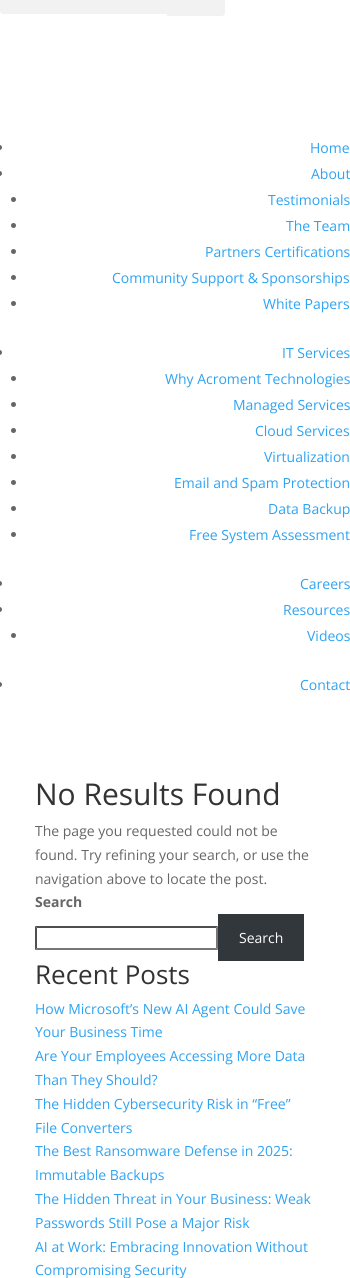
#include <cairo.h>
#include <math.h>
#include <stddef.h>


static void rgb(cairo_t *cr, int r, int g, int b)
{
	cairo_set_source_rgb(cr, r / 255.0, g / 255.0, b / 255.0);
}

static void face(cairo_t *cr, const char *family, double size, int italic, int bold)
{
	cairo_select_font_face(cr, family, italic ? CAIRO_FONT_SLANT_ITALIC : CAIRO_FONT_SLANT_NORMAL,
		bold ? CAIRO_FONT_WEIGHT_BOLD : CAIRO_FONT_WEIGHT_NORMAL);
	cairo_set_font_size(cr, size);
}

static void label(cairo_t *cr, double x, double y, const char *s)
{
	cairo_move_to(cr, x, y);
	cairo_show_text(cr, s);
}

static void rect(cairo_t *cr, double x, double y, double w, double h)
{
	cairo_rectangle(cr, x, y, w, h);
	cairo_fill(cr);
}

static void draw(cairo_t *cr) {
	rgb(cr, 255, 255, 255);
	cairo_paint(cr);
	rgb(cr, 242, 242, 242);
	cairo_new_path(cr);
	cairo_move_to(cr, 3, -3);
	cairo_line_to(cr, 167, -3);
	cairo_line_to(cr, 167, 14);
	cairo_line_to(cr, 3, 14);
	cairo_curve_to(cr, 1.5, 14, 0, 12.5, 0, 11);
	cairo_line_to(cr, 0, 0);
	cairo_curve_to(cr, 0, -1.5, 1.5, -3, 3, -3);
	cairo_close_path(cr);
	cairo_fill(cr);
	cairo_new_path(cr);
	cairo_move_to(cr, 167, -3);
	cairo_line_to(cr, 222, -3);
	cairo_curve_to(cr, 223.5, -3, 225, -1.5, 225, 0);
	cairo_line_to(cr, 225, 13);
	cairo_curve_to(cr, 225, 14.5, 223.5, 16, 222, 16);
	cairo_line_to(cr, 167, 16);
	cairo_close_path(cr);
	cairo_fill(cr);
	rgb(cr, 102, 102, 102);
	cairo_arc(cr, -0.5, 147.5, 2.5, 0, 2 * M_PI);
	cairo_fill(cr);
	face(cr, "Open Sans", 14, 0, 0);
	rgb(cr, 46, 163, 242);
	label(cr, 310, 153, "Home");
	rgb(cr, 102, 102, 102);
	cairo_new_path(cr);
	cairo_arc(cr, -0.5, 173.5, 2.5, 0, 2 * M_PI);
	cairo_fill(cr);
	rgb(cr, 46, 163, 242);
	label(cr, 311, 179, "About");
	rgb(cr, 102, 102, 102);
	cairo_new_path(cr);
	cairo_arc(cr, 13.5, 199.5, 2.5, 0, 2 * M_PI);
	cairo_fill(cr);
	rgb(cr, 46, 163, 242);
	label(cr, 268, 205, "Testimonials");
	rgb(cr, 102, 102, 102);
	cairo_new_path(cr);
	cairo_arc(cr, 13.5, 225.5, 2.5, 0, 2 * M_PI);
	cairo_fill(cr);
	rgb(cr, 46, 163, 242);
	label(cr, 286, 231, "The Team");
	rgb(cr, 102, 102, 102);
	cairo_new_path(cr);
	cairo_arc(cr, 13.5, 251.5, 2.5, 0, 2 * M_PI);
	cairo_fill(cr);
	rgb(cr, 46, 163, 242);
	label(cr, 205, 257, "Partners Certifications");
	rgb(cr, 102, 102, 102);
	cairo_new_path(cr);
	cairo_arc(cr, 13.5, 277.5, 2.5, 0, 2 * M_PI);
	cairo_fill(cr);
	rgb(cr, 46, 163, 242);
	label(cr, 112, 283, "Community Support & Sponsorships");
	rgb(cr, 102, 102, 102);
	cairo_new_path(cr);
	cairo_arc(cr, 13.5, 303.5, 2.5, 0, 2 * M_PI);
	cairo_fill(cr);
	rgb(cr, 46, 163, 242);
	label(cr, 263, 309, "White Papers");
	rgb(cr, 102, 102, 102);
	cairo_new_path(cr);
	cairo_arc(cr, -0.5, 352.5, 2.5, 0, 2 * M_PI);
	cairo_fill(cr);
	rgb(cr, 46, 163, 242);
	label(cr, 282, 358, "IT Services");
	rgb(cr, 102, 102, 102);
	cairo_new_path(cr);
	cairo_arc(cr, 13.5, 378.5, 2.5, 0, 2 * M_PI);
	cairo_fill(cr);
	rgb(cr, 46, 163, 242);
	label(cr, 165, 384, "Why Acroment Technologies");
	rgb(cr, 102, 102, 102);
	cairo_new_path(cr);
	cairo_arc(cr, 13.5, 404.5, 2.5, 0, 2 * M_PI);
	cairo_fill(cr);
	rgb(cr, 46, 163, 242);
	label(cr, 233, 410, "Managed Services");
	rgb(cr, 102, 102, 102);
	cairo_new_path(cr);
	cairo_arc(cr, 13.5, 430.5, 2.5, 0, 2 * M_PI);
	cairo_fill(cr);
	rgb(cr, 46, 163, 242);
	label(cr, 255, 436, "Cloud Services");
	rgb(cr, 102, 102, 102);
	cairo_new_path(cr);
	cairo_arc(cr, 13.5, 456.5, 2.5, 0, 2 * M_PI);
	cairo_fill(cr);
	rgb(cr, 46, 163, 242);
	label(cr, 264, 462, "Virtualization");
	rgb(cr, 102, 102, 102);
	cairo_new_path(cr);
	cairo_arc(cr, 13.5, 482.5, 2.5, 0, 2 * M_PI);
	cairo_fill(cr);
	rgb(cr, 46, 163, 242);
	label(cr, 174, 488, "Email and Spam Protection");
	rgb(cr, 102, 102, 102);
	cairo_new_path(cr);
	cairo_arc(cr, 13.5, 508.5, 2.5, 0, 2 * M_PI);
	cairo_fill(cr);
	rgb(cr, 46, 163, 242);
	label(cr, 268, 514, "Data Backup");
	rgb(cr, 102, 102, 102);
	cairo_new_path(cr);
	cairo_arc(cr, 13.5, 534.5, 2.5, 0, 2 * M_PI);
	cairo_fill(cr);
	rgb(cr, 46, 163, 242);
	label(cr, 189, 540, "Free System Assessment");
	rgb(cr, 102, 102, 102);
	cairo_new_path(cr);
	cairo_arc(cr, -0.5, 583.5, 2.5, 0, 2 * M_PI);
	cairo_fill(cr);
	rgb(cr, 46, 163, 242);
	label(cr, 300, 589, "Careers");
	rgb(cr, 102, 102, 102);
	cairo_new_path(cr);
	cairo_arc(cr, -0.5, 609.5, 2.5, 0, 2 * M_PI);
	cairo_fill(cr);
	rgb(cr, 46, 163, 242);
	label(cr, 283, 615, "Resources");
	rgb(cr, 102, 102, 102);
	cairo_new_path(cr);
	cairo_arc(cr, 13.5, 635.5, 2.5, 0, 2 * M_PI);
	cairo_fill(cr);
	rgb(cr, 46, 163, 242);
	label(cr, 307, 641, "Videos");
	rgb(cr, 102, 102, 102);
	cairo_new_path(cr);
	cairo_arc(cr, -0.5, 684.5, 2.5, 0, 2 * M_PI);
	cairo_fill(cr);
	rgb(cr, 46, 163, 242);
	label(cr, 300, 690, "Contact");
	face(cr, "Open Sans", 30, 0, 0);
	rgb(cr, 51, 51, 51);
	label(cr, 35, 805, "No Results Found");
	face(cr, "Open Sans", 14, 0, 0);
	rgb(cr, 102, 102, 102);
	label(cr, 35, 836, "The page you requested could not be");
	label(cr, 35, 860, "found. Try refining your search, or use the");
	label(cr, 35, 884, "navigation above to locate the post.");
	face(cr, "Open Sans", 14, 0, 1);
	label(cr, 35, 907, "Search");
	rgb(cr, 79, 79, 79);
	cairo_new_path(cr);
	cairo_move_to(cr, 35, 926);
	cairo_line_to(cr, 218, 926);
	cairo_line_to(cr, 216, 928);
	cairo_line_to(cr, 37, 928);
	cairo_close_path(cr);
	cairo_fill(cr);
	rgb(cr, 118, 118, 118);
	cairo_new_path(cr);
	cairo_move_to(cr, 218, 926);
	cairo_line_to(cr, 218, 950);
	cairo_line_to(cr, 216, 948);
	cairo_line_to(cr, 216, 928);
	cairo_close_path(cr);
	cairo_fill(cr);
	cairo_new_path(cr);
	cairo_move_to(cr, 218, 950);
	cairo_line_to(cr, 35, 950);
	cairo_line_to(cr, 37, 948);
	cairo_line_to(cr, 216, 948);
	cairo_close_path(cr);
	cairo_fill(cr);
	rgb(cr, 79, 79, 79);
	cairo_new_path(cr);
	cairo_move_to(cr, 35, 950);
	cairo_line_to(cr, 35, 926);
	cairo_line_to(cr, 37, 928);
	cairo_line_to(cr, 37, 948);
	cairo_close_path(cr);
	cairo_fill(cr);
	rgb(cr, 50, 55, 60);
	rect(cr, 218, 914, 86, 47);
	face(cr, "Open Sans", 14, 0, 0);
	rgb(cr, 255, 255, 255);
	label(cr, 239, 943, "Search");
	face(cr, "Open Sans", 26, 0, 0);
	rgb(cr, 51, 51, 51);
	label(cr, 35, 984, "Recent Posts");
	face(cr, "Open Sans", 14, 0, 0);
	rgb(cr, 46, 163, 242);
	label(cr, 35, 1014, "How Microsoft’s New AI Agent Could Save");
	label(cr, 35, 1037, "Your Business Time");
	label(cr, 35, 1061, "Are Your Employees Accessing More Data");
	label(cr, 35, 1085, "Than They Should?");
	label(cr, 35, 1109, "The Hidden Cybersecurity Risk in “Free”");
	label(cr, 35, 1133, "File Converters");
	label(cr, 35, 1156, "The Best Ransomware Defense in 2025:");
	label(cr, 35, 1180, "Immutable Backups");
	label(cr, 35, 1204, "The Hidden Threat in Your Business: Weak");
	label(cr, 35, 1228, "Passwords Still Pose a Major Risk");
	label(cr, 35, 1252, "AI at Work: Embracing Innovation Without");
	label(cr, 35, 1275, "Compromising Security");
}

int main(void) {
	cairo_surface_t *surface = cairo_image_surface_create(CAIRO_FORMAT_RGB24, 350, 1278);
	cairo_t *cr = cairo_create(surface);
	cairo_font_options_t *options = cairo_font_options_create();
	cairo_font_options_set_hint_metrics(options, CAIRO_HINT_METRICS_OFF);
	cairo_font_options_set_hint_style(options, CAIRO_HINT_STYLE_NONE);
	cairo_set_font_options(cr, options);
	cairo_set_miter_limit(cr, 4);
	draw(cr);
	cairo_surface_write_to_png(surface, "render.png");
	cairo_font_options_destroy(options);
	cairo_destroy(cr);
	cairo_surface_destroy(surface);
	return 0;
}
